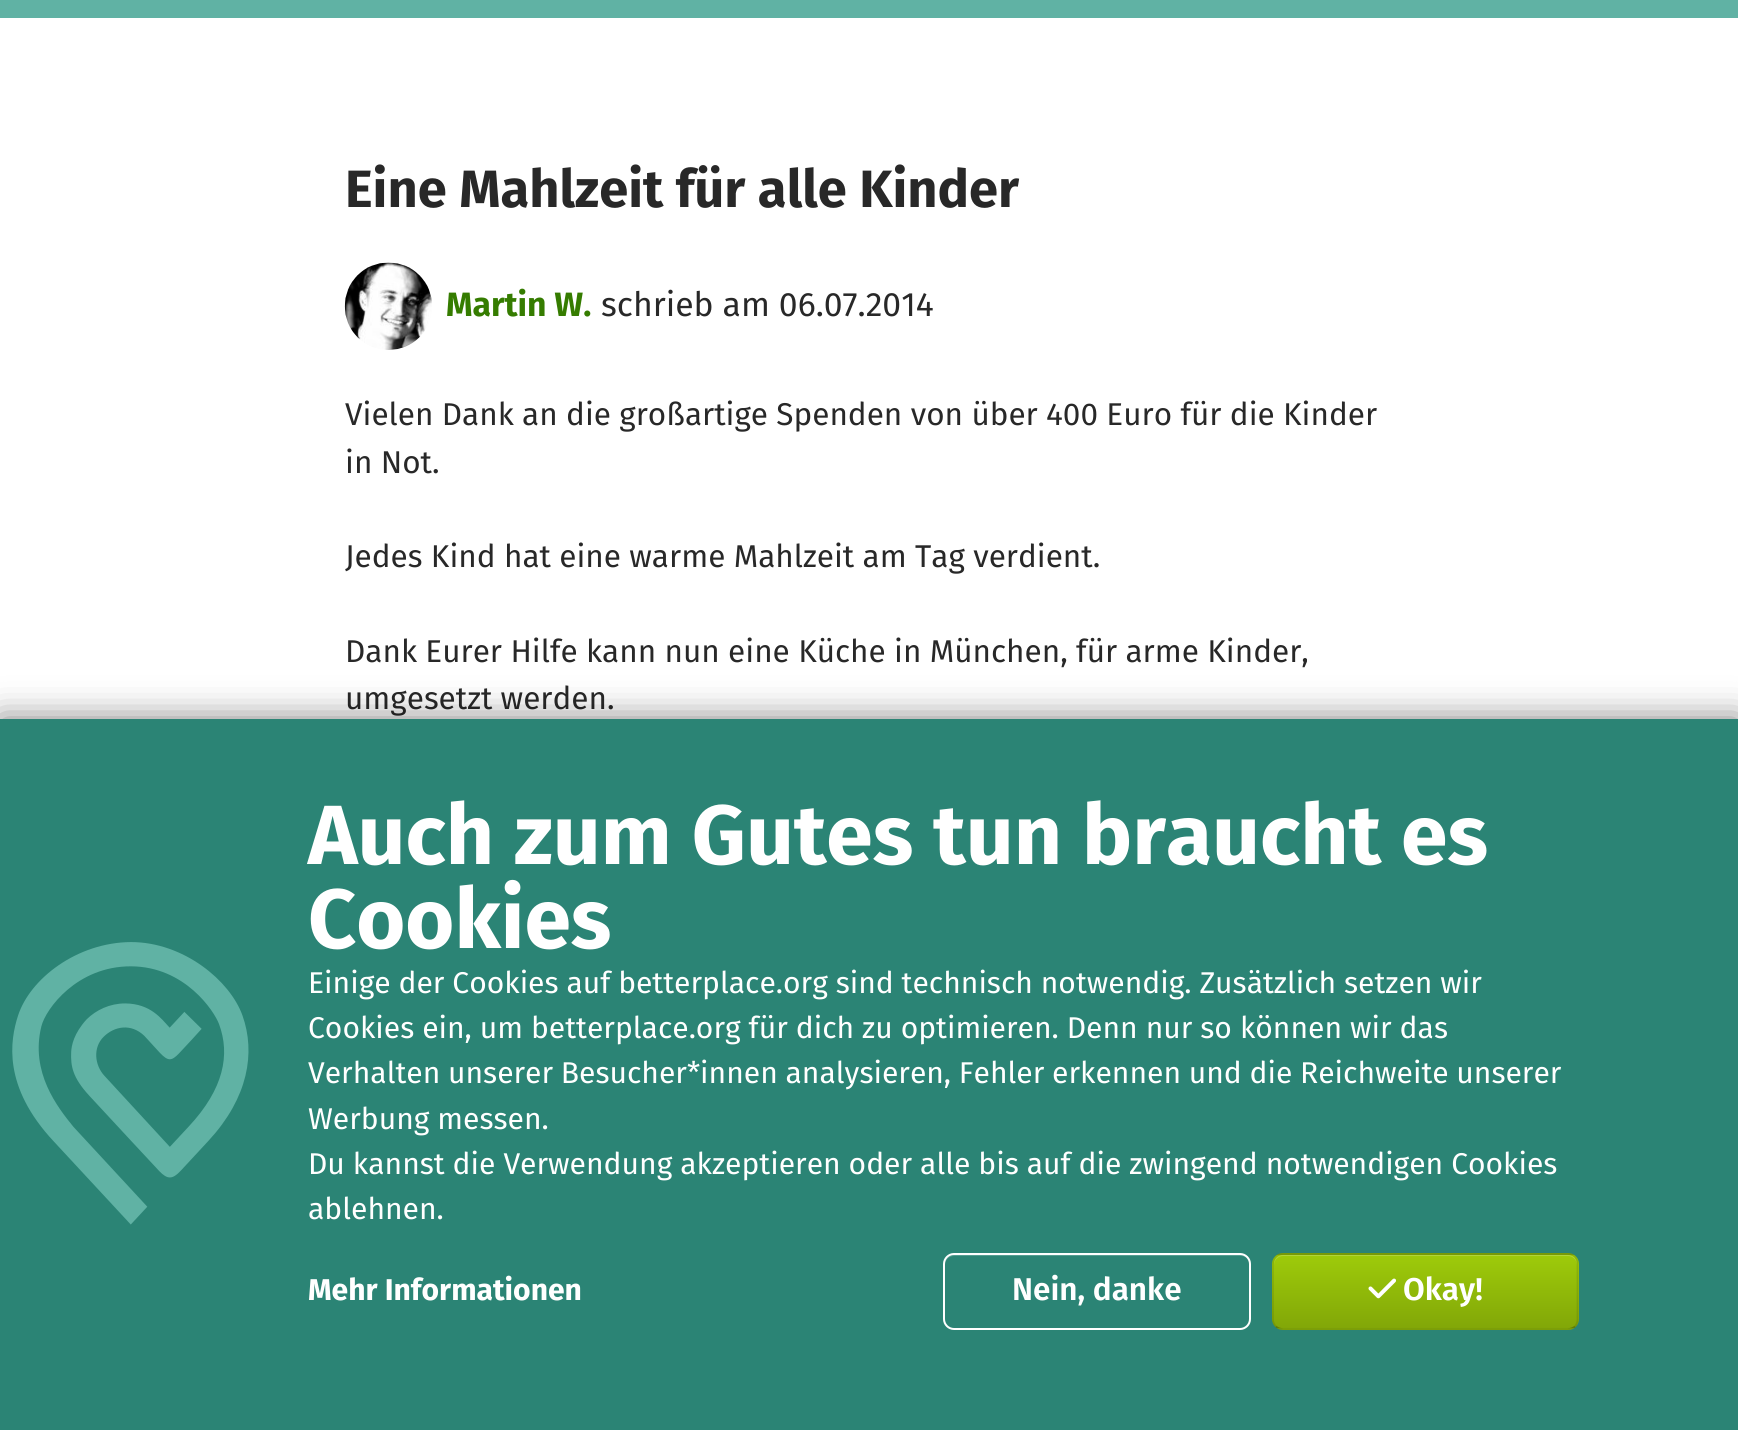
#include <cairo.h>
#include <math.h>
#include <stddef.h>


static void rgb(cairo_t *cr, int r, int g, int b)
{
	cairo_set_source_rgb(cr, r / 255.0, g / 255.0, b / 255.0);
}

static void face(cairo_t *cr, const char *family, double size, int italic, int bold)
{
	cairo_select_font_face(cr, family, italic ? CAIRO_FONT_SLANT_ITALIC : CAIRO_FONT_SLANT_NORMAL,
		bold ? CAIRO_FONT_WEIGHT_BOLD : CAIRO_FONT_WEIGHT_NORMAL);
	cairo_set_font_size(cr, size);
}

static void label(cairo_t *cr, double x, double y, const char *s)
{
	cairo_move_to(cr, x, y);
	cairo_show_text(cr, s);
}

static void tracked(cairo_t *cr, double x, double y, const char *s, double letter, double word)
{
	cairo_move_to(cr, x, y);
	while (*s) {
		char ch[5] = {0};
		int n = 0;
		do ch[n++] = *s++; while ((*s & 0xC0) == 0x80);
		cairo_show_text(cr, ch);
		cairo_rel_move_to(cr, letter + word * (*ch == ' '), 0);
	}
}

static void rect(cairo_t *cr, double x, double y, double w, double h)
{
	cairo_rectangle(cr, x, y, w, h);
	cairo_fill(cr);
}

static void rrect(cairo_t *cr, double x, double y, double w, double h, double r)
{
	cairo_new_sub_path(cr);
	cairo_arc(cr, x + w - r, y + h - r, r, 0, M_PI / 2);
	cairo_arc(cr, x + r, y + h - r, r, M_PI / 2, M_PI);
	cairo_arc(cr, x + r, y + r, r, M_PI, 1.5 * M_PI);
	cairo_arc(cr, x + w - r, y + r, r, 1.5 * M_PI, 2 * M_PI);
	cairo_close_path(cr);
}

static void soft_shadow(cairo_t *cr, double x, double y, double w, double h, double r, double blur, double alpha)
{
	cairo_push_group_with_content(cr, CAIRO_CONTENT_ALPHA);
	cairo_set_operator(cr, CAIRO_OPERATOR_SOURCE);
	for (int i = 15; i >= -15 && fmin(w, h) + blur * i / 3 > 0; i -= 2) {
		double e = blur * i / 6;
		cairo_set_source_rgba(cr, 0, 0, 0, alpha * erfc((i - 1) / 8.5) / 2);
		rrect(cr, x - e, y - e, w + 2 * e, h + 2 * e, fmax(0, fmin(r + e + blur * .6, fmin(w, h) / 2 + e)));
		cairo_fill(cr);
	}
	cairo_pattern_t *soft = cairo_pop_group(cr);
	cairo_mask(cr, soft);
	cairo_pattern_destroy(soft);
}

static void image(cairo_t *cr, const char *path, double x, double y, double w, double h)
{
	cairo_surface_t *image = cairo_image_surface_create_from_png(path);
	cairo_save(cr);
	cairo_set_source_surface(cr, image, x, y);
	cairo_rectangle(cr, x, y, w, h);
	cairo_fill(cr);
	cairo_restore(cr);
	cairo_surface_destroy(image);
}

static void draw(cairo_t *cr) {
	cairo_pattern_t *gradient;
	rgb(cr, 255, 255, 255);
	cairo_paint(cr);
	rgb(cr, 96, 178, 164);
	rect(cr, 0, 0, 1738, 18);
	face(cr, "Fira Sans", 52.5, 0, 1);
	rgb(cr, 40, 40, 40);
	label(cr, 345, 207, "Eine Mahlzeit für alle Kinder");
	image(cr, "image0.png", 344, 262, 88, 88);
	face(cr, "Fira Sans", 33.75, 0, 1);
	rgb(cr, 53, 124, 0);
	label(cr, 446, 316, "Martin W.");
	face(cr, "Fira Sans", 33.75, 0, 0);
	rgb(cr, 40, 40, 40);
	label(cr, 601, 316, "schrieb am 06.07.2014");
	face(cr, "Fira Sans", 31.5, 0, 0);
	label(cr, 345, 425, "Vielen Dank an die großartige Spenden von über 400 Euro für die Kinder");
	label(cr, 345, 473, "in Not.");
	label(cr, 345, 567, "Jedes Kind hat eine warme Mahlzeit am Tag verdient.");
	label(cr, 345, 662, "Dank Eurer Hilfe kann nun eine Küche in München, für arme Kinder,");
	label(cr, 345, 709, "umgesetzt werden.");
	rgb(cr, 0, 0, 0);
	soft_shadow(cr, 0, 719, 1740, 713, 0, 17.5, 0.5);
	rgb(cr, 43, 132, 117);
	rect(cr, 0, 719, 1738, 711);
	image(cr, "image1.png", 12, 942, 237, 283);
	face(cr, "Fira Sans", 84, 0, 1);
	rgb(cr, 255, 255, 255);
	label(cr, 308, 864, "Auch zum Gutes tun braucht es");
	label(cr, 308, 948, "Cookies");
	face(cr, "Fira Sans", 30.05, 0, 0);
	tracked(cr, 308, 993, "Einige der Cookies auf betterplace.org sind technisch notwendig. Zusätzlich setzen wir", 0, -0.1);
	label(cr, 308, 1038, "Cookies ein, um betterplace.org für dich zu optimieren. Denn nur so können wir das");
	tracked(cr, 308, 1083, "Verhalten unserer Besucher*innen analysieren, Fehler erkennen und die Reichweite unserer", 0, -0.25);
	label(cr, 308, 1129, "Werbung messen.");
	label(cr, 308, 1174, "Du kannst die Verwendung akzeptieren oder alle bis auf die zwingend notwendigen Cookies");
	label(cr, 308, 1219, "ablehnen.");
	face(cr, "Fira Sans", 30.05, 0, 1);
	label(cr, 308, 1300, "Mehr Informationen");
	rgb(cr, 85, 157, 145);
	cairo_new_path(cr);
	cairo_move_to(cr, 954, 1256);
	cairo_line_to(cr, 1241, 1256);
	cairo_curve_to(cr, 1246, 1256, 1250, 1260, 1250, 1265);
	cairo_line_to(cr, 1250, 1264);
	cairo_curve_to(cr, 1250, 1259, 1246, 1255, 1241, 1255);
	cairo_line_to(cr, 954, 1255);
	cairo_curve_to(cr, 949, 1255, 945, 1259, 945, 1264);
	cairo_line_to(cr, 945, 1265);
	cairo_curve_to(cr, 945, 1260, 949, 1256, 954, 1256);
	cairo_close_path(cr);
	cairo_fill(cr);
	rrect(cr, 944, 1254, 306, 75, 10);
	rgb(cr, 255, 255, 255);
	cairo_stroke(cr);
	face(cr, "Fira Sans SemiBold", 31.5, 0, 0);
	label(cr, 1012, 1300, "Nein, danke");
	cairo_save(cr);
	rrect(cr, 1272, 1253, 307, 77, 11);
	cairo_clip(cr);
	gradient = cairo_pattern_create_linear(1425, 1181, 1425, 1255);
	cairo_pattern_add_color_stop_rgba(gradient, 0, 0.62, 0.796, 0.039, 1);
	cairo_pattern_add_color_stop_rgba(gradient, 1, 0.51, 0.655, 0.031, 1);
	cairo_set_source(cr, gradient);
	cairo_pattern_destroy(gradient);
	rect(cr, 1272, 1253, 307, 2);
	gradient = cairo_pattern_create_linear(1425, 1255, 1425, 1328);
	cairo_pattern_add_color_stop_rgba(gradient, 0, 0.62, 0.796, 0.039, 1);
	cairo_pattern_add_color_stop_rgba(gradient, 1, 0.51, 0.655, 0.031, 1);
	cairo_set_source(cr, gradient);
	cairo_pattern_destroy(gradient);
	rect(cr, 1272, 1255, 307, 73);
	gradient = cairo_pattern_create_linear(1425, 1328, 1425, 1402);
	cairo_pattern_add_color_stop_rgba(gradient, 0, 0.62, 0.796, 0.039, 1);
	cairo_pattern_add_color_stop_rgba(gradient, 1, 0.51, 0.655, 0.031, 1);
	cairo_set_source(cr, gradient);
	cairo_pattern_destroy(gradient);
	rect(cr, 1272, 1328, 307, 2);
	cairo_restore(cr);
	rgb(cr, 177, 213, 59);
	cairo_new_path(cr);
	cairo_move_to(cr, 1283, 1256);
	cairo_line_to(cr, 1568, 1256);
	cairo_curve_to(cr, 1573, 1256, 1577, 1260, 1577, 1265);
	cairo_line_to(cr, 1577, 1264);
	cairo_curve_to(cr, 1577, 1259, 1573, 1255, 1568, 1255);
	cairo_line_to(cr, 1283, 1255);
	cairo_curve_to(cr, 1278, 1255, 1274, 1259, 1274, 1264);
	cairo_line_to(cr, 1274, 1265);
	cairo_curve_to(cr, 1274, 1260, 1278, 1256, 1283, 1256);
	cairo_close_path(cr);
	cairo_fill(cr);
	cairo_new_path(cr);
	cairo_move_to(cr, 1575, 1326.5);
	cairo_curve_to(cr, 1573, 1328, 1570.5, 1329, 1568, 1329);
	cairo_line_to(cr, 1283, 1329);
	cairo_curve_to(cr, 1280, 1329, 1277.5, 1328, 1276, 1326.5);
	cairo_set_source_rgba(cr, 0, 0, 0, 0.25);
	cairo_set_line_width(cr, 1.8);
	cairo_stroke(cr);
	cairo_new_path(cr);
	cairo_move_to(cr, 1276, 1326.5);
	cairo_curve_to(cr, 1274, 1324.5, 1273, 1322, 1273, 1319.5);
	cairo_line_to(cr, 1273, 1263.5);
	cairo_curve_to(cr, 1273, 1261, 1274, 1258.5, 1276, 1256.5);
	cairo_curve_to(cr, 1277.5, 1255, 1280, 1254, 1283, 1254);
	cairo_line_to(cr, 1568, 1254);
	cairo_curve_to(cr, 1570.5, 1254, 1573, 1255, 1575, 1256.5);
	cairo_curve_to(cr, 1576.5, 1258.5, 1577.5, 1261, 1577.5, 1263.5);
	cairo_line_to(cr, 1577.5, 1319.5);
	cairo_curve_to(cr, 1577.5, 1322, 1576.5, 1324.5, 1575, 1326.5);
	cairo_set_source_rgba(cr, 0, 0, 0, 0.1);
	cairo_stroke(cr);
	image(cr, "image2.png", 1368, 1278, 28, 21);
	rgb(cr, 255, 255, 255);
	label(cr, 1403, 1300, "Okay!");
}

int main(void) {
	cairo_surface_t *surface = cairo_image_surface_create(CAIRO_FORMAT_RGB24, 1738, 1430);
	cairo_t *cr = cairo_create(surface);
	cairo_font_options_t *options = cairo_font_options_create();
	cairo_font_options_set_hint_metrics(options, CAIRO_HINT_METRICS_OFF);
	cairo_font_options_set_hint_style(options, CAIRO_HINT_STYLE_NONE);
	cairo_set_font_options(cr, options);
	cairo_set_miter_limit(cr, 4);
	draw(cr);
	cairo_surface_write_to_png(surface, "render.png");
	cairo_font_options_destroy(options);
	cairo_destroy(cr);
	cairo_surface_destroy(surface);
	return 0;
}
